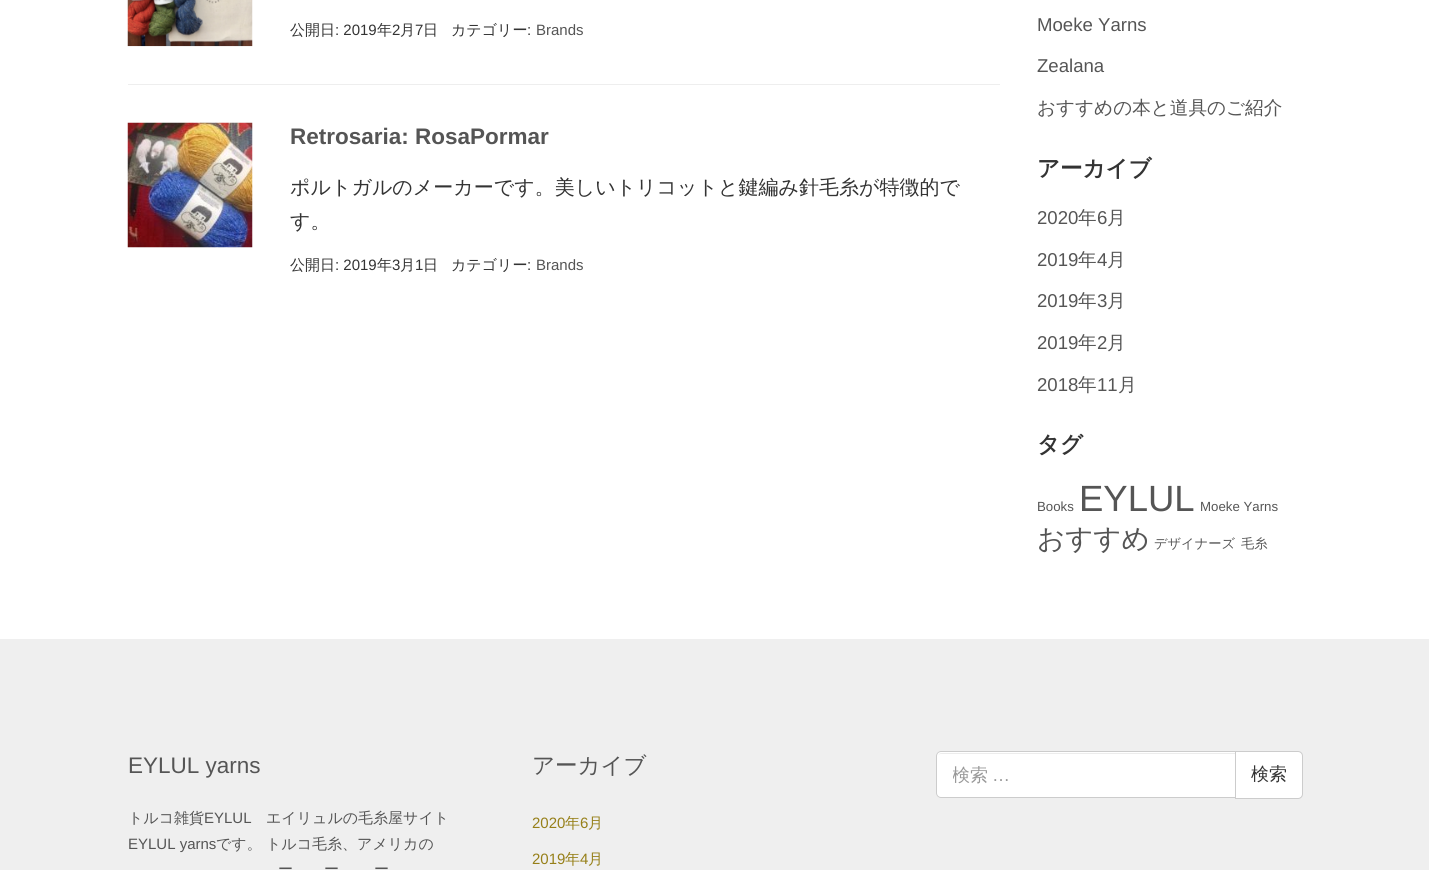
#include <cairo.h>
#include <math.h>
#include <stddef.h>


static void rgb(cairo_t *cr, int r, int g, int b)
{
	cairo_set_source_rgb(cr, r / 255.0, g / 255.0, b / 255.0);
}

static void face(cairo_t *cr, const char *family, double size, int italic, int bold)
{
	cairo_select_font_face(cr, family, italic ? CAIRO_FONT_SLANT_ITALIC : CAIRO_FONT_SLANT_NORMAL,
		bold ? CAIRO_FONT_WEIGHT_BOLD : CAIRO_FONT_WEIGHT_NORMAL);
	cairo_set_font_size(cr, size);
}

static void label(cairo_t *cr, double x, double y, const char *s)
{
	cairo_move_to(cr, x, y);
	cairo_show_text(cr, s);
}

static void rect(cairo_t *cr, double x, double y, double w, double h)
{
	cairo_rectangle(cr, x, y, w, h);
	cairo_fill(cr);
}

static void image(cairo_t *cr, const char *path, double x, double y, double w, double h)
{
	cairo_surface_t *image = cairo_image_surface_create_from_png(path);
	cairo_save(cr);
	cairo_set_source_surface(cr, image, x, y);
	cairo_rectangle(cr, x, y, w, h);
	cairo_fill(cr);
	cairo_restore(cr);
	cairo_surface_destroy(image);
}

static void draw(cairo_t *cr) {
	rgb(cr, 255, 255, 255);
	cairo_paint(cr);
	rgb(cr, 238, 238, 238);
	rect(cr, 128, 84, 872, 1);
	image(cr, "image0.png", 127, 0, 126, 47);
	face(cr, "WenQuanYi Zen Hei Medium", 15, 0, 0);
	rgb(cr, 51, 51, 51);
	label(cr, 290, 35, "公開日");
	face(cr, "Liberation Sans", 15, 0, 0);
	label(cr, 335, 35, ": 2019");
	face(cr, "WenQuanYi Zen Hei Medium", 15, 0, 0);
	label(cr, 377, 35, "年");
	face(cr, "Liberation Sans", 15, 0, 0);
	label(cr, 392, 35, "2");
	face(cr, "WenQuanYi Zen Hei Medium", 15, 0, 0);
	label(cr, 400, 35, "月");
	face(cr, "Liberation Sans", 15, 0, 0);
	label(cr, 415, 35, "7");
	face(cr, "WenQuanYi Zen Hei Medium", 15, 0, 0);
	label(cr, 423, 35, "日");
	label(cr, 451, 35, "カテゴリー");
	face(cr, "Liberation Sans", 15, 0, 0);
	label(cr, 527, 35, ":");
	rgb(cr, 85, 85, 85);
	label(cr, 536, 35, "Brands");
	image(cr, "image1.png", 127, 122, 126, 126);
	face(cr, "Liberation Sans", 22.5, 0, 1);
	label(cr, 290, 144, "Retrosaria: RosaPormar");
	face(cr, "WenQuanYi Zen Hei Medium", 20, 0, 0);
	rgb(cr, 51, 51, 51);
	label(cr, 290, 194, "ポルトガルのメーカーです。美しいトリコットと鍵編み針毛糸が特徴的で");
	label(cr, 290, 228, "す。");
	face(cr, "WenQuanYi Zen Hei Medium", 15, 0, 0);
	label(cr, 290, 270, "公開日");
	face(cr, "Liberation Sans", 15, 0, 0);
	label(cr, 335, 270, ": 2019");
	face(cr, "WenQuanYi Zen Hei Medium", 15, 0, 0);
	label(cr, 377, 270, "年");
	face(cr, "Liberation Sans", 15, 0, 0);
	label(cr, 392, 270, "3");
	face(cr, "WenQuanYi Zen Hei Medium", 15, 0, 0);
	label(cr, 400, 270, "月");
	face(cr, "Liberation Sans", 15, 0, 0);
	label(cr, 415, 270, "1");
	face(cr, "WenQuanYi Zen Hei Medium", 15, 0, 0);
	label(cr, 423, 270, "日");
	label(cr, 451, 270, "カテゴリー");
	face(cr, "Liberation Sans", 15, 0, 0);
	label(cr, 527, 270, ":");
	rgb(cr, 85, 85, 85);
	label(cr, 536, 270, "Brands");
	face(cr, "Liberation Sans", 18.6, 0, 0);
	label(cr, 1037, 31, "Moeke Yarns");
	label(cr, 1037, 72, "Zealana");
	face(cr, "WenQuanYi Zen Hei Medium", 18.6, 0, 0);
	label(cr, 1037, 114, "おすすめの本と道具のご紹介");
	face(cr, "WenQuanYi Zen Hei", 22.5, 0, 1);
	rgb(cr, 51, 51, 51);
	label(cr, 1037, 176, "アーカイブ");
	face(cr, "Liberation Sans", 18.6, 0, 0);
	rgb(cr, 85, 85, 85);
	label(cr, 1037, 224, "2020");
	face(cr, "WenQuanYi Zen Hei Medium", 18.6, 0, 0);
	label(cr, 1078, 224, "年");
	face(cr, "Liberation Sans", 18.6, 0, 0);
	label(cr, 1097, 224, "6");
	face(cr, "WenQuanYi Zen Hei Medium", 18.6, 0, 0);
	label(cr, 1107, 224, "月");
	face(cr, "Liberation Sans", 18.6, 0, 0);
	label(cr, 1037, 266, "2019");
	face(cr, "WenQuanYi Zen Hei Medium", 18.6, 0, 0);
	label(cr, 1078, 266, "年");
	face(cr, "Liberation Sans", 18.6, 0, 0);
	label(cr, 1097, 266, "4");
	face(cr, "WenQuanYi Zen Hei Medium", 18.6, 0, 0);
	label(cr, 1107, 266, "月");
	face(cr, "Liberation Sans", 18.6, 0, 0);
	label(cr, 1037, 307, "2019");
	face(cr, "WenQuanYi Zen Hei Medium", 18.6, 0, 0);
	label(cr, 1078, 307, "年");
	face(cr, "Liberation Sans", 18.6, 0, 0);
	label(cr, 1097, 307, "3");
	face(cr, "WenQuanYi Zen Hei Medium", 18.6, 0, 0);
	label(cr, 1107, 307, "月");
	face(cr, "Liberation Sans", 18.6, 0, 0);
	label(cr, 1037, 349, "2019");
	face(cr, "WenQuanYi Zen Hei Medium", 18.6, 0, 0);
	label(cr, 1078, 349, "年");
	face(cr, "Liberation Sans", 18.6, 0, 0);
	label(cr, 1097, 349, "2");
	face(cr, "WenQuanYi Zen Hei Medium", 18.6, 0, 0);
	label(cr, 1107, 349, "月");
	face(cr, "Liberation Sans", 18.6, 0, 0);
	label(cr, 1037, 391, "2018");
	face(cr, "WenQuanYi Zen Hei Medium", 18.6, 0, 0);
	label(cr, 1078, 391, "年");
	face(cr, "Liberation Sans", 18.6, 0, 0);
	label(cr, 1097, 391, "11");
	face(cr, "WenQuanYi Zen Hei Medium", 18.6, 0, 0);
	label(cr, 1118, 391, "月");
	face(cr, "WenQuanYi Zen Hei", 22.5, 0, 1);
	rgb(cr, 51, 51, 51);
	label(cr, 1037, 452, "タグ");
	face(cr, "Liberation Sans", 13.25, 0, 0);
	rgb(cr, 85, 85, 85);
	label(cr, 1037, 511, "Books");
	face(cr, "Liberation Sans", 36.5, 0, 0);
	label(cr, 1079, 511, "EYLUL");
	face(cr, "Liberation Sans", 13.25, 0, 0);
	label(cr, 1200, 511, "Moeke Yarns");
	face(cr, "WenQuanYi Zen Hei Medium", 27.5, 0, 0);
	label(cr, 1037, 548, "おすすめ");
	face(cr, "WenQuanYi Zen Hei Medium", 13.25, 0, 0);
	label(cr, 1154, 548, "デザイナーズ");
	label(cr, 1241, 548, "毛糸");
	rgb(cr, 239, 239, 239);
	rect(cr, 0, 639, 1429, 231);
	face(cr, "Liberation Sans", 22.5, 0, 0);
	rgb(cr, 85, 85, 85);
	label(cr, 128, 773, "EYLUL yarns");
	face(cr, "WenQuanYi Zen Hei Medium", 15, 0, 0);
	label(cr, 128, 823, "トルコ雑貨");
	face(cr, "Liberation Sans", 15, 0, 0);
	label(cr, 204, 823, "EYLUL");
	face(cr, "WenQuanYi Zen Hei Medium", 15, 0, 0);
	label(cr, 266, 823, "エイリュルの毛糸屋サイト");
	face(cr, "Liberation Sans", 15, 0, 0);
	label(cr, 128, 849, "EYLUL yarns");
	face(cr, "WenQuanYi Zen Hei Medium", 15, 0, 0);
	label(cr, 216, 849, "です。");
	label(cr, 266, 849, "トルコ毛糸、アメリカの");
	label(cr, 278, 874, "ー");
	label(cr, 324, 874, "ー");
	label(cr, 374, 874, "ー");
	face(cr, "WenQuanYi Zen Hei Medium", 22.5, 0, 0);
	label(cr, 532, 773, "アーカイブ");
	face(cr, "Liberation Sans", 15, 0, 0);
	rgb(cr, 150, 127, 24);
	label(cr, 532, 828, "2020");
	face(cr, "WenQuanYi Zen Hei Medium", 15, 0, 0);
	label(cr, 565, 828, "年");
	face(cr, "Liberation Sans", 15, 0, 0);
	label(cr, 580, 828, "6");
	face(cr, "WenQuanYi Zen Hei Medium", 15, 0, 0);
	label(cr, 588, 828, "月");
	face(cr, "Liberation Sans", 15, 0, 0);
	label(cr, 532, 864, "2019");
	face(cr, "WenQuanYi Zen Hei Medium", 15, 0, 0);
	label(cr, 565, 864, "年");
	face(cr, "Liberation Sans", 15, 0, 0);
	label(cr, 580, 864, "4");
	face(cr, "WenQuanYi Zen Hei Medium", 15, 0, 0);
	label(cr, 588, 864, "月");
	rgb(cr, 255, 255, 255);
	cairo_new_path(cr);
	cairo_move_to(cr, 1235.5, 751.5);
	cairo_line_to(cr, 1298, 751.5);
	cairo_curve_to(cr, 1300.5, 751.5, 1302.5, 753.5, 1302.5, 756);
	cairo_line_to(cr, 1302.5, 794);
	cairo_curve_to(cr, 1302.5, 796.5, 1300.5, 798.5, 1298, 798.5);
	cairo_line_to(cr, 1235.5, 798.5);
	cairo_close_path(cr);
	cairo_fill_preserve(cr);
	rgb(cr, 204, 204, 204);
	cairo_set_line_width(cr, 1);
	cairo_stroke(cr);
	rgb(cr, 255, 255, 255);
	cairo_new_path(cr);
	cairo_move_to(cr, 941, 751);
	cairo_line_to(cr, 1236, 751);
	cairo_line_to(cr, 1236, 798);
	cairo_line_to(cr, 941, 798);
	cairo_curve_to(cr, 938, 798, 936, 796, 936, 793);
	cairo_line_to(cr, 936, 756);
	cairo_curve_to(cr, 936, 753, 938, 751, 941, 751);
	cairo_close_path(cr);
	cairo_fill(cr);
	rgb(cr, 236, 236, 236);
	cairo_new_path(cr);
	cairo_move_to(cr, 941, 754);
	cairo_line_to(cr, 1235, 754);
	cairo_line_to(cr, 1235, 753);
	cairo_line_to(cr, 942, 753);
	cairo_curve_to(cr, 939, 753, 938, 755, 938, 758);
	cairo_curve_to(cr, 938, 755, 939, 754, 941, 754);
	cairo_close_path(cr);
	cairo_fill(cr);
	cairo_new_path(cr);
	cairo_move_to(cr, 941, 751.5);
	cairo_line_to(cr, 1235.5, 751.5);
	cairo_line_to(cr, 1235.5, 797.5);
	cairo_line_to(cr, 941, 797.5);
	cairo_curve_to(cr, 938.5, 797.5, 936.5, 795.5, 936.5, 793);
	cairo_line_to(cr, 936.5, 756);
	cairo_curve_to(cr, 936.5, 753.5, 938.5, 751.5, 941, 751.5);
	cairo_close_path(cr);
	rgb(cr, 204, 204, 204);
	cairo_stroke(cr);
	cairo_save(cr);
	cairo_rectangle(cr, 953, 765, 262, 23);
	cairo_clip(cr);
	face(cr, "WenQuanYi Zen Hei Medium", 18, 0, 0);
	rgb(cr, 153, 153, 153);
	label(cr, 952, 781, "検索");
	cairo_restore(cr);
	face(cr, "Liberation Sans", 18, 0, 0);
	rgb(cr, 153, 153, 153);
	label(cr, 992, 781, "…");
	face(cr, "WenQuanYi Zen Hei Medium", 18, 0, 0);
	rgb(cr, 51, 51, 51);
	label(cr, 1251, 780, "検索");
}

int main(void) {
	cairo_surface_t *surface = cairo_image_surface_create(CAIRO_FORMAT_RGB24, 1429, 870);
	cairo_t *cr = cairo_create(surface);
	cairo_font_options_t *options = cairo_font_options_create();
	cairo_font_options_set_hint_metrics(options, CAIRO_HINT_METRICS_OFF);
	cairo_font_options_set_hint_style(options, CAIRO_HINT_STYLE_NONE);
	cairo_set_font_options(cr, options);
	cairo_set_miter_limit(cr, 4);
	draw(cr);
	cairo_surface_write_to_png(surface, "render.png");
	cairo_font_options_destroy(options);
	cairo_destroy(cr);
	cairo_surface_destroy(surface);
	return 0;
}
